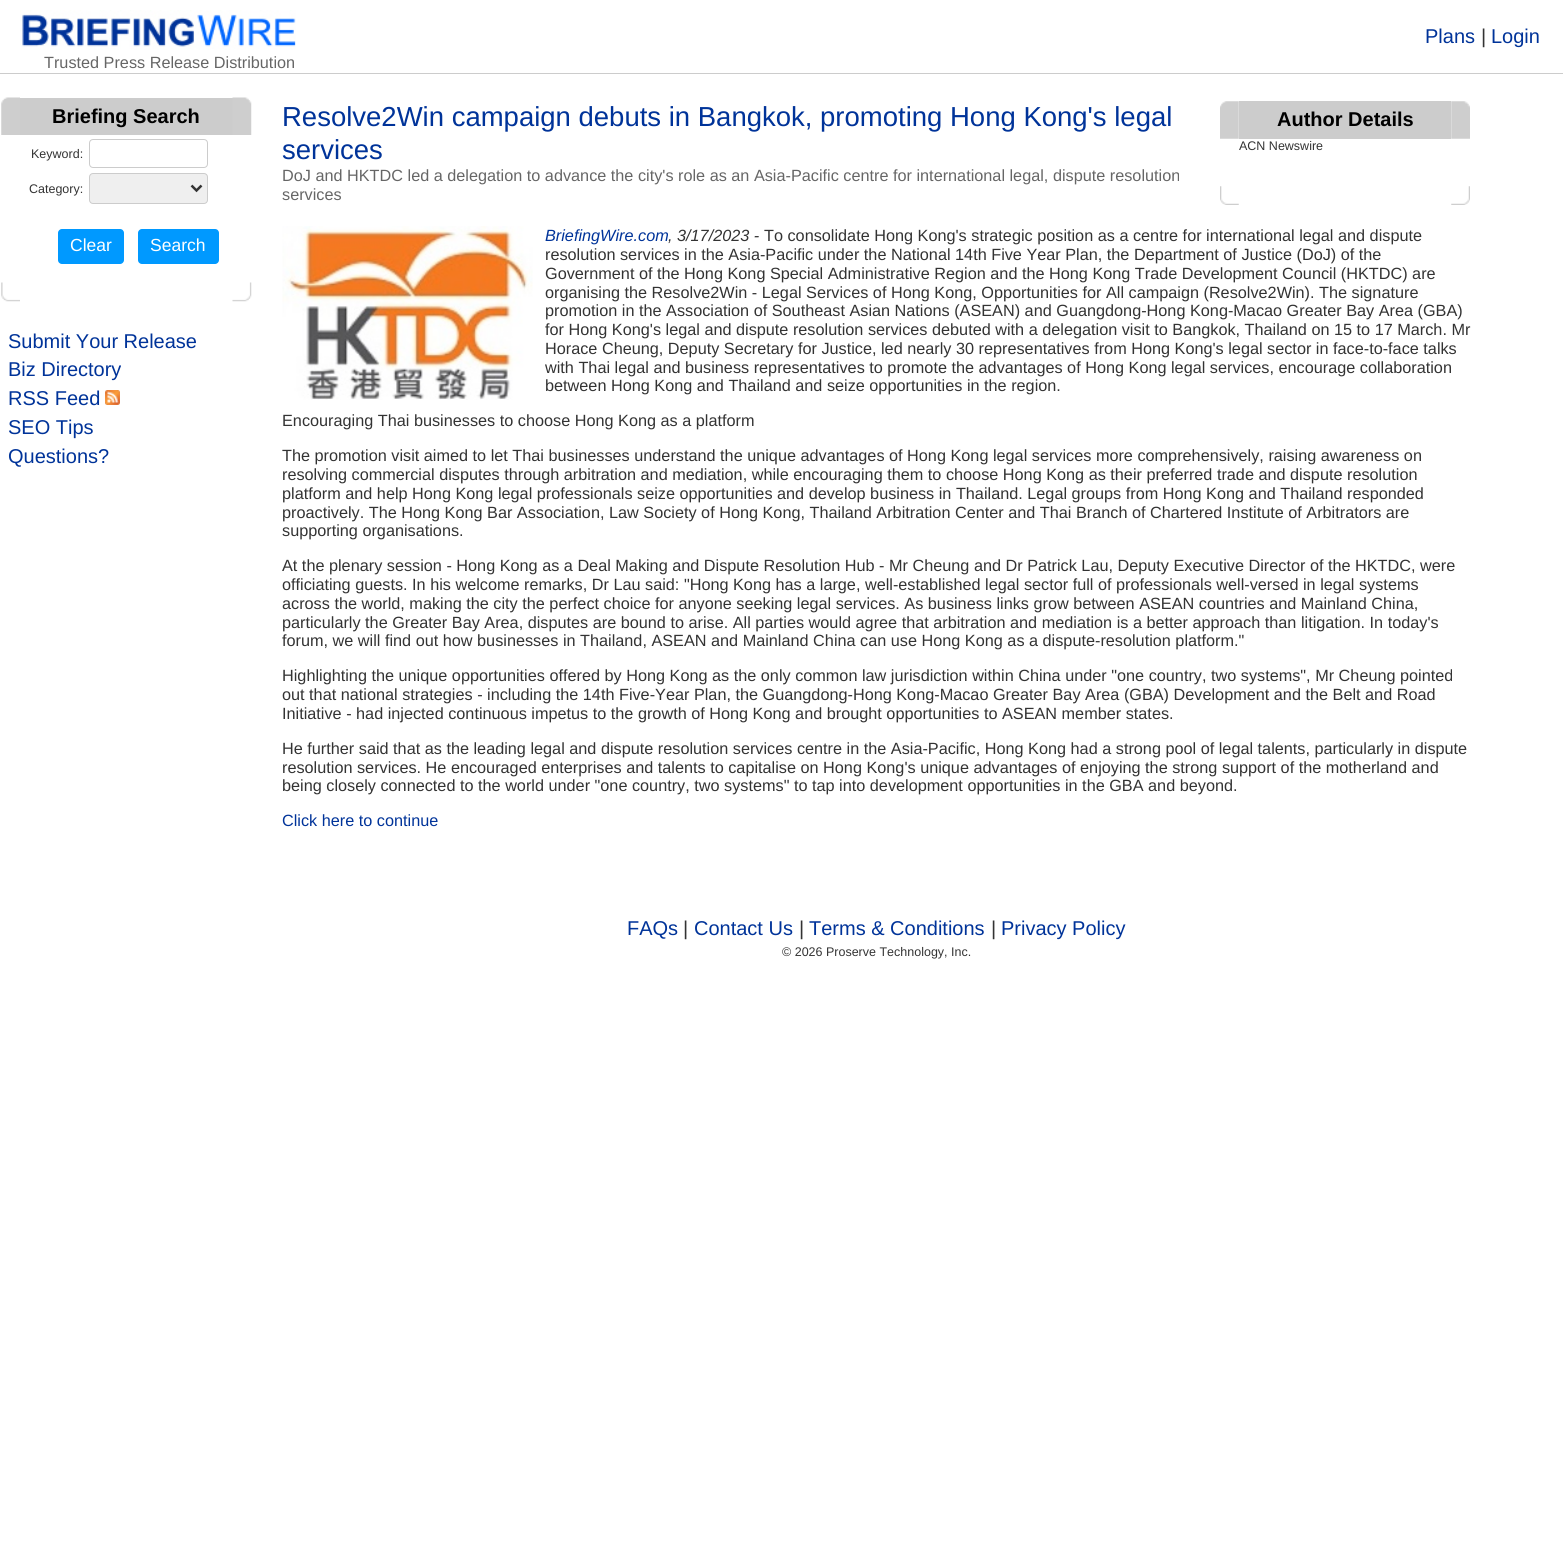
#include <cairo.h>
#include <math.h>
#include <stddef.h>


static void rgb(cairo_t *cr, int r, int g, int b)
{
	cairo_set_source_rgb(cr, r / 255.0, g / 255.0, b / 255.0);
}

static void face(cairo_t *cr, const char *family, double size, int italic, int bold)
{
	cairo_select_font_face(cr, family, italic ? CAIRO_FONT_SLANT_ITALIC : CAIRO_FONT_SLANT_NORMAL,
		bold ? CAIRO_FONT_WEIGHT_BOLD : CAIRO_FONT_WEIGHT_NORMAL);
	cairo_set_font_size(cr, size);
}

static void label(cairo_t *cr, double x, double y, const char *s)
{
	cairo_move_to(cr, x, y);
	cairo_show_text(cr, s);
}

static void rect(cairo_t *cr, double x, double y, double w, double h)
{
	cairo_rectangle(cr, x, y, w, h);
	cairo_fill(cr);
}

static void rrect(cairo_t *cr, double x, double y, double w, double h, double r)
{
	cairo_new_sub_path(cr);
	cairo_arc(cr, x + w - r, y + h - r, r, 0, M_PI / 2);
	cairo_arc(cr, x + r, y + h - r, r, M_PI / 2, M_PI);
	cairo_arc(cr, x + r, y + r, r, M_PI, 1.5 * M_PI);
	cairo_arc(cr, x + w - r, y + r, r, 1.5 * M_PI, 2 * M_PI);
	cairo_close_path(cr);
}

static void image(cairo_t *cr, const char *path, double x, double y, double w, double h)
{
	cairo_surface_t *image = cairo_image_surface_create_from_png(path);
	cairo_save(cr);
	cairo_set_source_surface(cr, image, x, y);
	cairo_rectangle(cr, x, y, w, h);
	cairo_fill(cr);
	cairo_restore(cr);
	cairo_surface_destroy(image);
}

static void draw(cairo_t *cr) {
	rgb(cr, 255, 255, 255);
	cairo_paint(cr);
	face(cr, "Liberation Sans", 20, 0, 0);
	rgb(cr, 0, 51, 153);
	label(cr, 1425, 43, "Plans");
	rgb(cr, 51, 51, 51);
	label(cr, 1481, 43, "|");
	rgb(cr, 0, 51, 153);
	label(cr, 1491, 43, "Login");
	rgb(cr, 204, 204, 204);
	rect(cr, 0, 73, 1563, 1);
	image(cr, "image0.png", 20, 10, 276, 40);
	face(cr, "Liberation Sans", 16.25, 0, 0);
	rgb(cr, 102, 102, 102);
	label(cr, 44, 68, "Trusted Press Release Distribution");
	image(cr, "image1.png", 1, 97, 19, 38);
	rgb(cr, 204, 204, 204);
	rect(cr, 20, 98, 213, 37);
	face(cr, "Liberation Sans", 20, 0, 1);
	rgb(cr, 0, 0, 0);
	label(cr, 52, 123, "Briefing Search");
	image(cr, "image2.png", 232, 97, 20, 38);
	face(cr, "Liberation Sans", 12.5, 0, 0);
	rgb(cr, 51, 51, 51);
	label(cr, 31, 158, "Keyword:");
	rrect(cr, 89.5, 139.5, 118, 28, 3.5);
	rgb(cr, 204, 204, 204);
	cairo_set_line_width(cr, 1);
	cairo_stroke(cr);
	rgb(cr, 51, 51, 51);
	label(cr, 29, 193, "Category:");
	rgb(cr, 239, 239, 239);
	rrect(cr, 89.5, 173.5, 118, 30, 3.5);
	cairo_fill_preserve(cr);
	rgb(cr, 204, 204, 204);
	cairo_stroke(cr);
	cairo_new_path(cr);
	cairo_move_to(cr, 191.5, 185.5);
	cairo_line_to(cr, 196.5, 190.5);
	cairo_line_to(cr, 201.5, 185.5);
	rgb(cr, 51, 51, 51);
	cairo_set_line_width(cr, 2.5);
	cairo_stroke(cr);
	rgb(cr, 0, 153, 255);
	rrect(cr, 58, 229, 66, 35, 4);
	cairo_fill(cr);
	face(cr, "Liberation Sans", 17.5, 0, 0);
	rgb(cr, 255, 255, 255);
	label(cr, 70, 251, "Clear");
	rgb(cr, 0, 153, 255);
	rrect(cr, 138, 229, 81, 35, 4);
	cairo_fill(cr);
	rgb(cr, 255, 255, 255);
	label(cr, 150, 251, "Search");
	image(cr, "image3.png", 1, 282, 19, 20);
	image(cr, "image4.png", 232, 282, 20, 20);
	face(cr, "Liberation Sans", 20, 0, 0);
	rgb(cr, 0, 51, 153);
	label(cr, 8, 348, "Submit Your Release");
	label(cr, 8, 376, "Biz Directory");
	label(cr, 8, 405, "RSS Feed");
	image(cr, "image5.png", 105, 390, 15, 15);
	label(cr, 8, 434, "SEO Tips");
	label(cr, 8, 463, "Questions?");
	face(cr, "Liberation Sans", 27.5, 0, 0);
	label(cr, 282, 126, "Resolve2Win campaign debuts in Bangkok, promoting Hong Kong's legal");
	image(cr, "image6.png", 1220, 101, 19, 38);
	rgb(cr, 204, 204, 204);
	rect(cr, 1239, 101, 212, 38);
	face(cr, "Liberation Sans", 20, 0, 1);
	rgb(cr, 0, 0, 0);
	label(cr, 1277, 126, "Author Details");
	image(cr, "image7.png", 1451, 101, 19, 38);
	face(cr, "Liberation Sans", 12.5, 0, 0);
	rgb(cr, 51, 51, 51);
	label(cr, 1239, 150, "ACN Newswire");
	image(cr, "image8.png", 1220, 186, 19, 19);
	image(cr, "image9.png", 1451, 186, 19, 19);
	face(cr, "Liberation Sans", 27.5, 0, 0);
	rgb(cr, 0, 51, 153);
	label(cr, 282, 159, "services");
	face(cr, "Liberation Sans", 16.25, 0, 0);
	rgb(cr, 102, 102, 102);
	label(cr, 282, 181, "DoJ and HKTDC led a delegation to advance the city's role as an Asia-Pacific centre for international legal, dispute resolution");
	label(cr, 282, 200, "services");
	image(cr, "image10.png", 282, 226, 251, 174);
	rgb(cr, 51, 51, 51);
	label(cr, 764, 241, "To consolidate Hong Kong's strategic position as a centre for international legal and dispute");
	label(cr, 545, 260, "resolution services in the Asia-Pacific under the National 14th Five Year Plan, the Department of Justice (DoJ) of the");
	label(cr, 545, 279, "Government of the Hong Kong Special Administrative Region and the Hong Kong Trade Development Council (HKTDC) are");
	label(cr, 545, 298, "organising the Resolve2Win - Legal Services of Hong Kong, Opportunities for All campaign (Resolve2Win). The signature");
	label(cr, 545, 316, "promotion in the Association of Southeast Asian Nations (ASEAN) and Guangdong-Hong Kong-Macao Greater Bay Area (GBA)");
	label(cr, 545, 335, "for Hong Kong's legal and dispute resolution services debuted with a delegation visit to Bangkok, Thailand on 15 to 17 March. Mr");
	label(cr, 545, 354, "Horace Cheung, Deputy Secretary for Justice, led nearly 30 representatives from Hong Kong's legal sector in face-to-face talks");
	label(cr, 545, 373, "with Thai legal and business representatives to promote the advantages of Hong Kong legal services, encourage collaboration");
	label(cr, 545, 391, "between Hong Kong and Thailand and seize opportunities in the region.");
	label(cr, 282, 426, "Encouraging Thai businesses to choose Hong Kong as a platform");
	label(cr, 282, 461, "The promotion visit aimed to let Thai businesses understand the unique advantages of Hong Kong legal services more comprehensively, raising awareness on");
	label(cr, 282, 480, "resolving commercial disputes through arbitration and mediation, while encouraging them to choose Hong Kong as their preferred trade and dispute resolution");
	label(cr, 282, 499, "platform and help Hong Kong legal professionals seize opportunities and develop business in Thailand. Legal groups from Hong Kong and Thailand responded");
	label(cr, 282, 518, "proactively. The Hong Kong Bar Association, Law Society of Hong Kong, Thailand Arbitration Center and Thai Branch of Chartered Institute of Arbitrators are");
	label(cr, 282, 536, "supporting organisations.");
	label(cr, 282, 571, "At the plenary session - Hong Kong as a Deal Making and Dispute Resolution Hub - Mr Cheung and Dr Patrick Lau, Deputy Executive Director of the HKTDC, were");
	label(cr, 282, 590, "officiating guests. In his welcome remarks, Dr Lau said: \"Hong Kong has a large, well-established legal sector full of professionals well-versed in legal systems");
	label(cr, 282, 609, "across the world, making the city the perfect choice for anyone seeking legal services. As business links grow between ASEAN countries and Mainland China,");
	label(cr, 282, 628, "particularly the Greater Bay Area, disputes are bound to arise. All parties would agree that arbitration and mediation is a better approach than litigation. In today's");
	label(cr, 282, 646, "forum, we will find out how businesses in Thailand, ASEAN and Mainland China can use Hong Kong as a dispute-resolution platform.\"");
	label(cr, 282, 681, "Highlighting the unique opportunities offered by Hong Kong as the only common law jurisdiction within China under \"one country, two systems\", Mr Cheung pointed");
	label(cr, 282, 700, "out that national strategies - including the 14th Five-Year Plan, the Guangdong-Hong Kong-Macao Greater Bay Area (GBA) Development and the Belt and Road");
	label(cr, 282, 719, "Initiative - had injected continuous impetus to the growth of Hong Kong and brought opportunities to ASEAN member states.");
	label(cr, 282, 754, "He further said that as the leading legal and dispute resolution services centre in the Asia-Pacific, Hong Kong had a strong pool of legal talents, particularly in dispute");
	label(cr, 282, 773, "resolution services. He encouraged enterprises and talents to capitalise on Hong Kong's unique advantages of enjoying the strong support of the motherland and");
	label(cr, 282, 791, "being closely connected to the world under \"one country, two systems\" to tap into development opportunities in the GBA and beyond.");
	rgb(cr, 0, 51, 153);
	label(cr, 282, 826, "Click here to continue");
	face(cr, "Liberation Sans", 16.25, 1, 0);
	label(cr, 545, 241, "BriefingWire.com");
	rgb(cr, 51, 51, 51);
	label(cr, 668, 241, ", 3/17/2023 -");
	face(cr, "Liberation Sans", 20, 0, 0);
	rgb(cr, 0, 51, 153);
	label(cr, 627, 935, "FAQs");
	rgb(cr, 51, 51, 51);
	label(cr, 683, 935, "|");
	rgb(cr, 0, 51, 153);
	label(cr, 694, 935, "Contact Us");
	rgb(cr, 51, 51, 51);
	label(cr, 799, 935, "|");
	rgb(cr, 0, 51, 153);
	label(cr, 809, 935, "Terms & Conditions");
	rgb(cr, 51, 51, 51);
	label(cr, 991, 935, "|");
	rgb(cr, 0, 51, 153);
	label(cr, 1001, 935, "Privacy Policy");
	face(cr, "Liberation Sans", 12.5, 0, 0);
	rgb(cr, 51, 51, 51);
	label(cr, 782, 956, "© 2026 Proserve Technology, Inc.");
}

int main(void) {
	cairo_surface_t *surface = cairo_image_surface_create(CAIRO_FORMAT_RGB24, 1566, 1558);
	cairo_t *cr = cairo_create(surface);
	cairo_font_options_t *options = cairo_font_options_create();
	cairo_font_options_set_hint_metrics(options, CAIRO_HINT_METRICS_OFF);
	cairo_font_options_set_hint_style(options, CAIRO_HINT_STYLE_NONE);
	cairo_set_font_options(cr, options);
	cairo_set_miter_limit(cr, 4);
	draw(cr);
	cairo_surface_write_to_png(surface, "render.png");
	cairo_font_options_destroy(options);
	cairo_destroy(cr);
	cairo_surface_destroy(surface);
	return 0;
}
